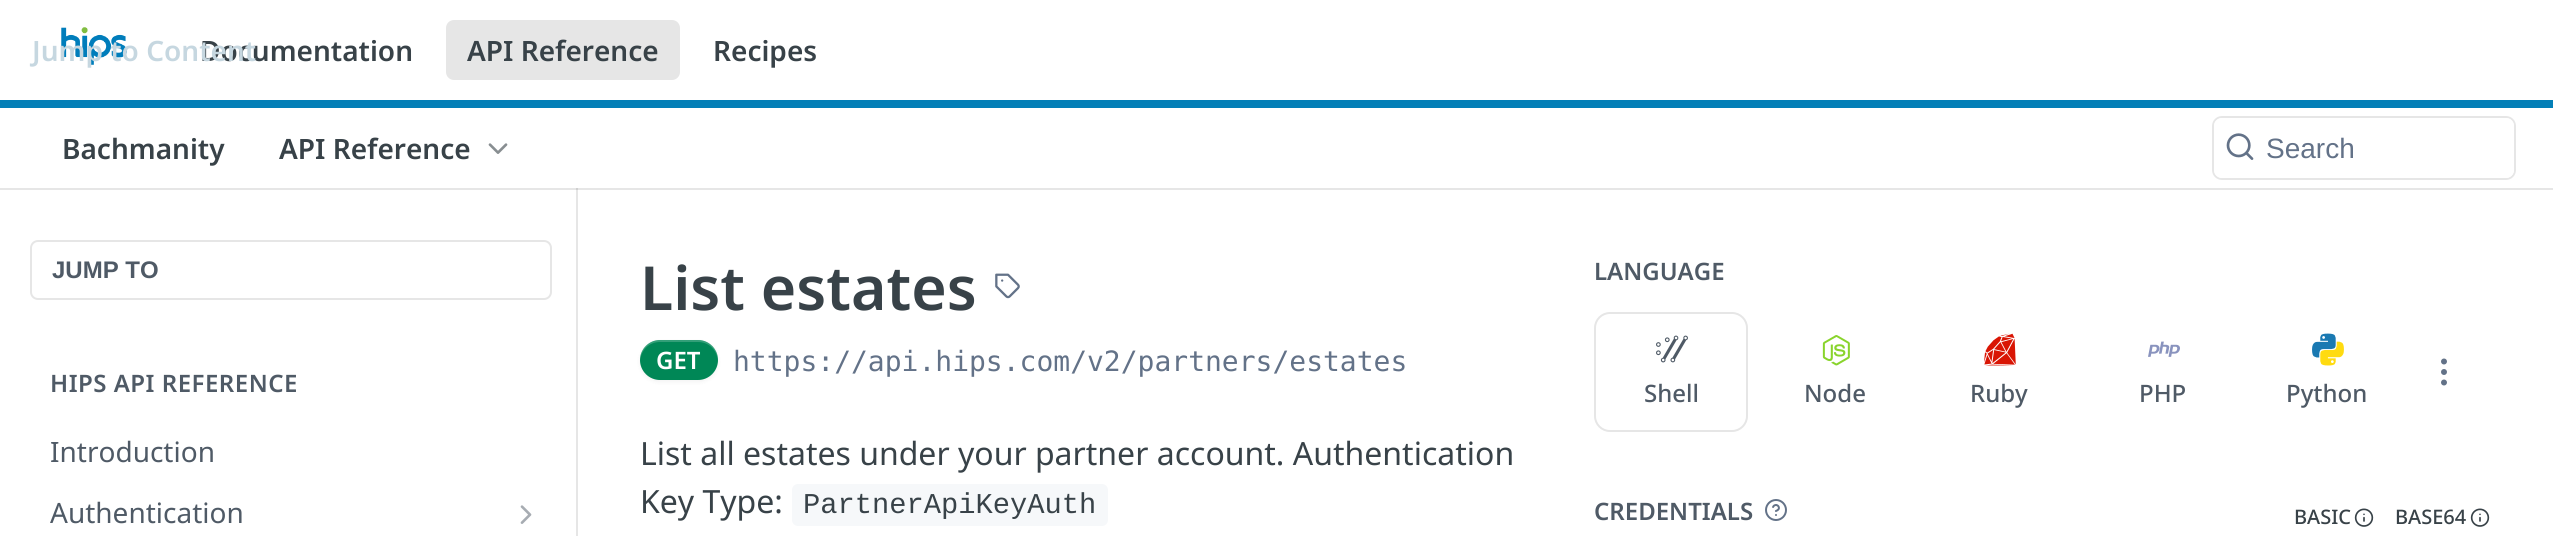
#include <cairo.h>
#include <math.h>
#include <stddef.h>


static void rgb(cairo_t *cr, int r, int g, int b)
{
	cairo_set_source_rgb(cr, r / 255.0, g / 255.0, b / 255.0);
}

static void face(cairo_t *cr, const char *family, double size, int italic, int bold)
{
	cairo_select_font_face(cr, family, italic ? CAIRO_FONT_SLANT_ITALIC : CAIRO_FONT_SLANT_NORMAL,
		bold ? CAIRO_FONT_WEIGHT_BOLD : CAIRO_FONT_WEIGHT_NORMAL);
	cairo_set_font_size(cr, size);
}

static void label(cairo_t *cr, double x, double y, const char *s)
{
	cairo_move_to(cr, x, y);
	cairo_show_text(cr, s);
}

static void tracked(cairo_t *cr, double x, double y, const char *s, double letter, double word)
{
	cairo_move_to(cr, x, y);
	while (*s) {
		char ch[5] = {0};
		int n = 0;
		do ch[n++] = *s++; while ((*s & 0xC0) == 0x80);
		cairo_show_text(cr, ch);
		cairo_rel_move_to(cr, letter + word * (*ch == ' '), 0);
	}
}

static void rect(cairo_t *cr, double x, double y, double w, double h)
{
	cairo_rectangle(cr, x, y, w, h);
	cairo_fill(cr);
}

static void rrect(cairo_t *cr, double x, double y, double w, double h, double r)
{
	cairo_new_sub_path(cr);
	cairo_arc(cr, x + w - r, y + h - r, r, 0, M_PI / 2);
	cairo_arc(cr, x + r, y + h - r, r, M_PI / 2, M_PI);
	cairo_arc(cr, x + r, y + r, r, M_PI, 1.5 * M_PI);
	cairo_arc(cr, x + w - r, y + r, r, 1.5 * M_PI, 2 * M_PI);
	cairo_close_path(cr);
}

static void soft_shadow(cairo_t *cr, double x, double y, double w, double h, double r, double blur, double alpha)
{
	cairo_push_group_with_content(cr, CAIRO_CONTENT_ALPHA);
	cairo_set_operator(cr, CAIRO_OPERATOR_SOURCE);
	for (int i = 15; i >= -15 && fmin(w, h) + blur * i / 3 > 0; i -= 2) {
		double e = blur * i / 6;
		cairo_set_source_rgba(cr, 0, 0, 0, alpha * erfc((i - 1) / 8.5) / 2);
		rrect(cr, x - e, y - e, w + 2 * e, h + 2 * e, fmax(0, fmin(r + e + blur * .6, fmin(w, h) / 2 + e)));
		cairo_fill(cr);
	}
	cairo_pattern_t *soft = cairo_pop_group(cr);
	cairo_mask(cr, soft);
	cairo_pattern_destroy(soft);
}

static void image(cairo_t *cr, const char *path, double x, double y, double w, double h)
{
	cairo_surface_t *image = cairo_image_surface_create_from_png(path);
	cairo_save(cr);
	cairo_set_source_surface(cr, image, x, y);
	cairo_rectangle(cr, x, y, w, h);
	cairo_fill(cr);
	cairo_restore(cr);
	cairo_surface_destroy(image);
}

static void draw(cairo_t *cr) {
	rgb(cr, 255, 255, 255);
	cairo_paint(cr);
	rgb(cr, 230, 230, 230);
	rect(cr, 0, 188, 2553, 2);
	rgb(cr, 4, 127, 183);
	rect(cr, 0, 100, 2553, 8);
	image(cr, "image0.png", 61, 27, 66, 38);
	face(cr, "Noto Sans SemiBold", 28, 0, 0);
	rgb(cr, 56, 66, 72);
	label(cr, 200, 61, "Documentation");
	rgb(cr, 198, 215, 224);
	label(cr, 32, 61, "Jump to Content");
	rgb(cr, 230, 230, 230);
	rrect(cr, 446, 20, 234, 60, 8);
	cairo_fill(cr);
	rgb(cr, 56, 66, 72);
	label(cr, 467, 61, "API Reference");
	label(cr, 713, 61, "Recipes");
	label(cr, 62, 159, "Bachmanity");
	label(cr, 279, 159, "API Reference");
	image(cr, "image1.png", 488, 143, 20, 11);
	rrect(cr, 2213, 117, 302, 62, 9);
	rgb(cr, 230, 230, 230);
	cairo_stroke(cr);
	rgb(cr, 255, 255, 255);
	rrect(cr, 2214, 118, 300, 60, 8);
	cairo_fill(cr);
	image(cr, "image2.png", 2226, 133, 28, 27);
	face(cr, "Liberation Sans", 28, 0, 0);
	rgb(cr, 99, 114, 136);
	label(cr, 2266, 158, "Search");
	rgb(cr, 230, 230, 230);
	rect(cr, 576, 188, 2, 348);
	rgb(cr, 207, 207, 207);
	rect(cr, 576, 188, 2, 2);
	rrect(cr, 31, 241, 520, 58, 7);
	rgb(cr, 230, 230, 230);
	cairo_stroke(cr);
	face(cr, "Liberation Sans", 24, 0, 1);
	rgb(cr, 79, 90, 102);
	label(cr, 52, 278, "JUMP TO");
	face(cr, "Noto Sans SemiBold", 24, 0, 0);
	tracked(cr, 50, 392, "HIPS API REFERENCE", 0.5, 0);
	face(cr, "Noto Sans", 28, 0, 0);
	label(cr, 50, 462, "Introduction");
	label(cr, 50, 523, "Authentication");
	image(cr, "image3.png", 520, 505, 12, 19);
	face(cr, "Noto Sans SemiBold", 60.75, 0, 0);
	rgb(cr, 56, 66, 72);
	label(cr, 640, 310, "List estates");
	image(cr, "image4.png", 995, 273, 25, 26);
	rgb(cr, 0, 0, 0);
	soft_shadow(cr, 640, 342, 78, 40, 20, 2, 0.05);
	rgb(cr, 0, 135, 86);
	rrect(cr, 640, 340, 78, 40, 20);
	cairo_fill(cr);
	cairo_set_source_rgba(cr, 1, 1, 1, 0.2);
	cairo_new_path(cr);
	cairo_move_to(cr, 660, 342);
	cairo_line_to(cr, 698, 342);
	cairo_curve_to(cr, 709, 342, 717, 350, 718, 361);
	cairo_curve_to(cr, 718, 357, 717, 352, 715, 349);
	cairo_curve_to(cr, 707, 337, 691, 340, 679, 340);
	cairo_curve_to(cr, 667, 340, 651, 337, 643, 349);
	cairo_curve_to(cr, 641, 352, 640, 357, 640, 361);
	cairo_curve_to(cr, 641, 350, 649, 342, 660, 342);
	cairo_close_path(cr);
	cairo_fill(cr);
	face(cr, "Noto Sans SemiBold", 24, 0, 0);
	rgb(cr, 255, 255, 255);
	label(cr, 656, 369, "GET");
	face(cr, "DejaVu Sans Mono", 28, 0, 0);
	rgb(cr, 99, 114, 136);
	label(cr, 733, 371, "https://api.hips.com/v2/partners/estates");
	face(cr, "Noto Sans", 32, 0, 0);
	rgb(cr, 56, 66, 72);
	label(cr, 640, 465, "List all estates under your partner account. Authentication");
	label(cr, 640, 513, "Key Type:");
	rgb(cr, 246, 248, 250);
	rrect(cr, 792, 484, 316, 42, 6);
	cairo_fill(cr);
	face(cr, "Liberation Mono", 28.75, 0, 0);
	rgb(cr, 56, 66, 72);
	label(cr, 803, 513, "PartnerApiKeyAuth");
	face(cr, "Noto Sans SemiBold", 24, 0, 0);
	rgb(cr, 79, 90, 102);
	label(cr, 1594, 280, "LANGUAGE");
	image(cr, "image5.png", 2441, 358, 6, 28);
	rrect(cr, 1595, 313, 152, 118, 15);
	rgb(cr, 230, 230, 230);
	cairo_stroke(cr);
	image(cr, "image6.png", 1656, 335, 32, 28);
	face(cr, "Noto Sans Medium", 24, 0, 0);
	rgb(cr, 79, 90, 102);
	label(cr, 1644, 402, "Shell");
	image(cr, "image7.png", 1822, 335, 28, 31);
	label(cr, 1804, 402, "Node");
	image(cr, "image8.png", 1984, 333, 32, 33);
	label(cr, 1970, 402, "Ruby");
	image(cr, "image9.png", 2148, 341, 32, 16);
	label(cr, 2139, 402, "PHP");
	image(cr, "image10.png", 2312, 333, 24, 25);
	image(cr, "image11.png", 2320, 341, 24, 25);
	label(cr, 2286, 402, "Python");
	face(cr, "Noto Sans SemiBold", 24, 0, 0);
	label(cr, 1594, 520, "CREDENTIALS");
	image(cr, "image12.png", 1765, 499, 22, 22);
	face(cr, "Noto Sans Medium", 20, 0, 0);
	rgb(cr, 56, 66, 72);
	label(cr, 2294, 524, "BASIC");
	image(cr, "image13.png", 2354, 508, 20, 19);
	label(cr, 2395, 524, "BASE64");
	image(cr, "image13.png", 2470, 508, 20, 19);
}

int main(void) {
	cairo_surface_t *surface = cairo_image_surface_create(CAIRO_FORMAT_RGB24, 2553, 536);
	cairo_t *cr = cairo_create(surface);
	cairo_font_options_t *options = cairo_font_options_create();
	cairo_font_options_set_hint_metrics(options, CAIRO_HINT_METRICS_OFF);
	cairo_font_options_set_hint_style(options, CAIRO_HINT_STYLE_NONE);
	cairo_set_font_options(cr, options);
	cairo_set_miter_limit(cr, 4);
	draw(cr);
	cairo_surface_write_to_png(surface, "render.png");
	cairo_font_options_destroy(options);
	cairo_destroy(cr);
	cairo_surface_destroy(surface);
	return 0;
}
